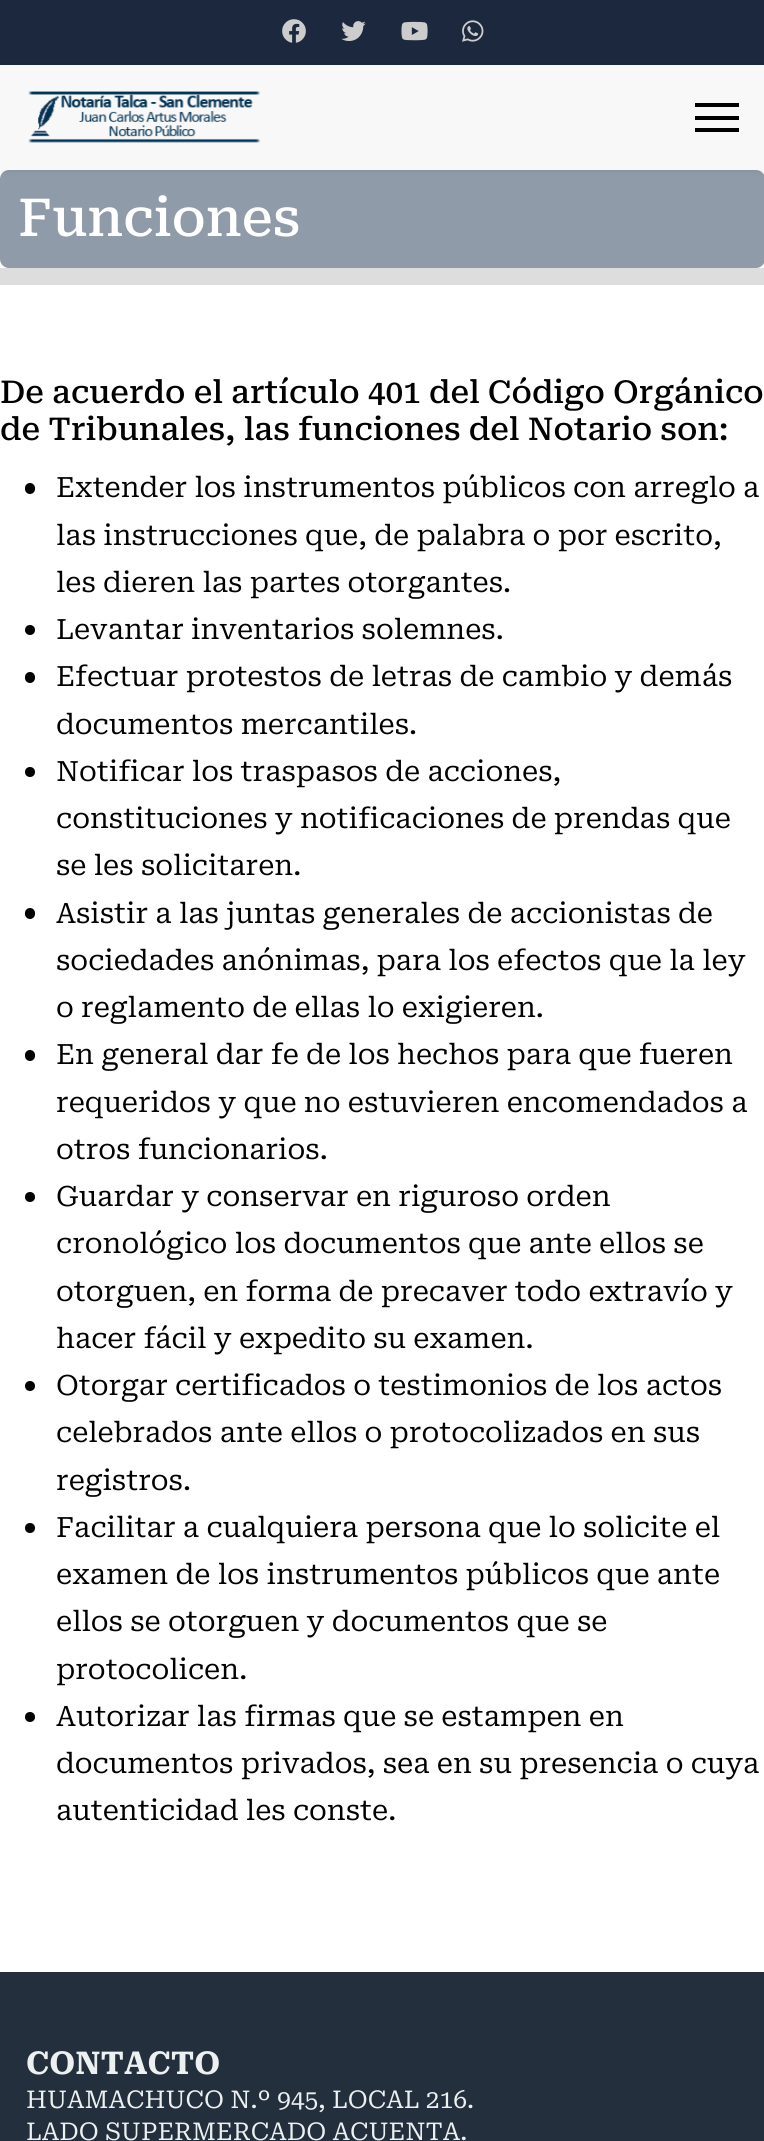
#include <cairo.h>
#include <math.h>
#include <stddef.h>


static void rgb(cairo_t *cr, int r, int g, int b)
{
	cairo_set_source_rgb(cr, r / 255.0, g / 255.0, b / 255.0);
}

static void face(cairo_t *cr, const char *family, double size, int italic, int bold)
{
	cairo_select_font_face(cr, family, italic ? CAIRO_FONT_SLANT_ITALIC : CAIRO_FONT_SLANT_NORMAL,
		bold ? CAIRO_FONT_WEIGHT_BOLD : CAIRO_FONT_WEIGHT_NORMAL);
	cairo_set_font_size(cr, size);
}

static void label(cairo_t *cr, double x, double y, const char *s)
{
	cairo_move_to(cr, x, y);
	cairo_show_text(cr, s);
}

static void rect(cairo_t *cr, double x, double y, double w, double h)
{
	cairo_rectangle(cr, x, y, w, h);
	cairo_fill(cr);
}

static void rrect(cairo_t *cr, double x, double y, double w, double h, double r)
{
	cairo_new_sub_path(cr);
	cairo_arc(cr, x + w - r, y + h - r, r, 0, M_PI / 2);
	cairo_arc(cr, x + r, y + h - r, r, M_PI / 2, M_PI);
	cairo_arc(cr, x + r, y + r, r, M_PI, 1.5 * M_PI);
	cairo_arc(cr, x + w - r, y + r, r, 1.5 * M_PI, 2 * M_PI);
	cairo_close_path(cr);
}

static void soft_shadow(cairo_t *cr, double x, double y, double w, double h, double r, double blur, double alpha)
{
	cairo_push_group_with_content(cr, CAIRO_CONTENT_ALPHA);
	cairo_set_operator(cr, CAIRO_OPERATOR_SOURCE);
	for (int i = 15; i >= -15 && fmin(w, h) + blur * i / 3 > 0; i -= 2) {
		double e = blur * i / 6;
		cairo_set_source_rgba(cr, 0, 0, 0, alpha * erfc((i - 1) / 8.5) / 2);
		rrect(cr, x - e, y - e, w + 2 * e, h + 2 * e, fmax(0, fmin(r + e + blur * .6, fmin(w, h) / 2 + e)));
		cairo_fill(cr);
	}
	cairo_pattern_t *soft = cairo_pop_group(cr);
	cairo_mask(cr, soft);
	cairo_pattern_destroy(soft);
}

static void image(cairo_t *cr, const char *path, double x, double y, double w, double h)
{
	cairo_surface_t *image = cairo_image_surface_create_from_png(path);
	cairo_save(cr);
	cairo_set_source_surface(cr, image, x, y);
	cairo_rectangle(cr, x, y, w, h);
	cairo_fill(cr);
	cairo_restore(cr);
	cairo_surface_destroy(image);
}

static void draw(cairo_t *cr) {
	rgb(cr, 221, 221, 221);
	cairo_paint(cr);
	rgb(cr, 27, 40, 61);
	rect(cr, 0, 0, 764, 65);
	image(cr, "image0.png", 282, 19, 24, 24);
	image(cr, "image1.png", 341, 21, 25, 20);
	image(cr, "image2.png", 401, 21, 27, 20);
	image(cr, "image3.png", 462, 20, 22, 22);
	rgb(cr, 255, 255, 255);
	rect(cr, 0, 170, 764, 98);
	rgb(cr, 143, 155, 168);
	rrect(cr, 0, 170, 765, 98, 9);
	cairo_fill(cr);
	rgb(cr, 0, 0, 0);
	soft_shadow(cr, 0, 65, 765, 105, 0, 3.5, 0.1);
	rgb(cr, 248, 248, 248);
	rect(cr, 0, 65, 764, 105);
	image(cr, "image4.png", 28, 91, 233, 52);
	rgb(cr, 0, 0, 0);
	rect(cr, 695, 103, 44, 4);
	rect(cr, 695, 116, 44, 4);
	rect(cr, 695, 128, 44, 4);
	face(cr, "Roboto Serif Medium", 52.5, 0, 0);
	rgb(cr, 255, 255, 255);
	label(cr, 18, 236, "Funciones");
	rect(cr, 0, 285, 764, 1687);
	face(cr, "Roboto Serif Medium", 31.5, 0, 0);
	rgb(cr, 0, 0, 0);
	label(cr, 0, 403, "De acuerdo el artículo 401 del Código Orgánico");
	label(cr, 0, 440, "de Tribunales, las funciones del Notario son:");
	rrect(cr, 25, 483, 10, 11, 5);
	cairo_fill(cr);
	face(cr, "Roboto Serif", 28, 0, 0);
	label(cr, 56, 497, "Extender los instrumentos públicos con arreglo a");
	label(cr, 56, 545, "las instrucciones que, de palabra o por escrito,");
	label(cr, 56, 592, "les dieren las partes otorgantes.");
	cairo_new_path(cr);
	cairo_arc(cr, 30, 630, 5, 0, 2 * M_PI);
	cairo_fill(cr);
	label(cr, 56, 639, "Levantar inventarios solemnes.");
	rrect(cr, 25, 672, 10, 11, 5);
	cairo_fill(cr);
	label(cr, 56, 686, "Efectuar protestos de letras de cambio y demás");
	label(cr, 56, 734, "documentos mercantiles.");
	cairo_new_path(cr);
	cairo_arc(cr, 30, 772, 5, 0, 2 * M_PI);
	cairo_fill(cr);
	label(cr, 56, 781, "Notificar los traspasos de acciones,");
	label(cr, 56, 828, "constituciones y notificaciones de prendas que");
	label(cr, 56, 875, "se les solicitaren.");
	rrect(cr, 25, 908, 10, 11, 5);
	cairo_fill(cr);
	label(cr, 56, 923, "Asistir a las juntas generales de accionistas de");
	label(cr, 56, 970, "sociedades anónimas, para los efectos que la ley");
	label(cr, 56, 1017, "o reglamento de ellas lo exigieren.");
	rrect(cr, 25, 1050, 10, 11, 5);
	cairo_fill(cr);
	label(cr, 56, 1064, "En general dar fe de los hechos para que fueren");
	label(cr, 56, 1112, "requeridos y que no estuvieren encomendados a");
	label(cr, 56, 1159, "otros funcionarios.");
	cairo_new_path(cr);
	cairo_arc(cr, 30, 1197, 5, 0, 2 * M_PI);
	cairo_fill(cr);
	label(cr, 56, 1206, "Guardar y conservar en riguroso orden");
	label(cr, 56, 1253, "cronológico los documentos que ante ellos se");
	label(cr, 56, 1301, "otorguen, en forma de precaver todo extravío y");
	label(cr, 56, 1348, "hacer fácil y expedito su examen.");
	cairo_new_path(cr);
	cairo_arc(cr, 30, 1386, 5, 0, 2 * M_PI);
	cairo_fill(cr);
	label(cr, 56, 1395, "Otorgar certificados o testimonios de los actos");
	label(cr, 56, 1442, "celebrados ante ellos o protocolizados en sus");
	label(cr, 56, 1490, "registros.");
	cairo_new_path(cr);
	cairo_arc(cr, 30, 1528, 5, 0, 2 * M_PI);
	cairo_fill(cr);
	label(cr, 56, 1537, "Facilitar a cualquiera persona que lo solicite el");
	label(cr, 56, 1584, "examen de los instrumentos públicos que ante");
	label(cr, 56, 1631, "ellos se otorguen y documentos que se");
	label(cr, 56, 1679, "protocolicen.");
	cairo_new_path(cr);
	cairo_arc(cr, 30, 1717, 5, 0, 2 * M_PI);
	cairo_fill(cr);
	label(cr, 56, 1726, "Autorizar las firmas que se estampen en");
	label(cr, 56, 1773, "documentos privados, sea en su presencia o cuya");
	label(cr, 56, 1820, "autenticidad les conste.");
	rgb(cr, 36, 47, 62);
	rect(cr, 0, 1972, 764, 169);
	face(cr, "Roboto Serif", 31.5, 0, 1);
	rgb(cr, 236, 240, 241);
	label(cr, 26, 2074, "CONTACTO");
	face(cr, "Roboto Serif", 24.5, 0, 0);
	label(cr, 26, 2108, "HUAMACHUCO N.º 945, LOCAL 216.");
	label(cr, 26, 2140, "LADO SUPERMERCADO ACUENTA.");
}

int main(void) {
	cairo_surface_t *surface = cairo_image_surface_create(CAIRO_FORMAT_RGB24, 764, 2141);
	cairo_t *cr = cairo_create(surface);
	cairo_font_options_t *options = cairo_font_options_create();
	cairo_font_options_set_hint_metrics(options, CAIRO_HINT_METRICS_OFF);
	cairo_font_options_set_hint_style(options, CAIRO_HINT_STYLE_NONE);
	cairo_set_font_options(cr, options);
	cairo_set_miter_limit(cr, 4);
	draw(cr);
	cairo_surface_write_to_png(surface, "render.png");
	cairo_font_options_destroy(options);
	cairo_destroy(cr);
	cairo_surface_destroy(surface);
	return 0;
}
